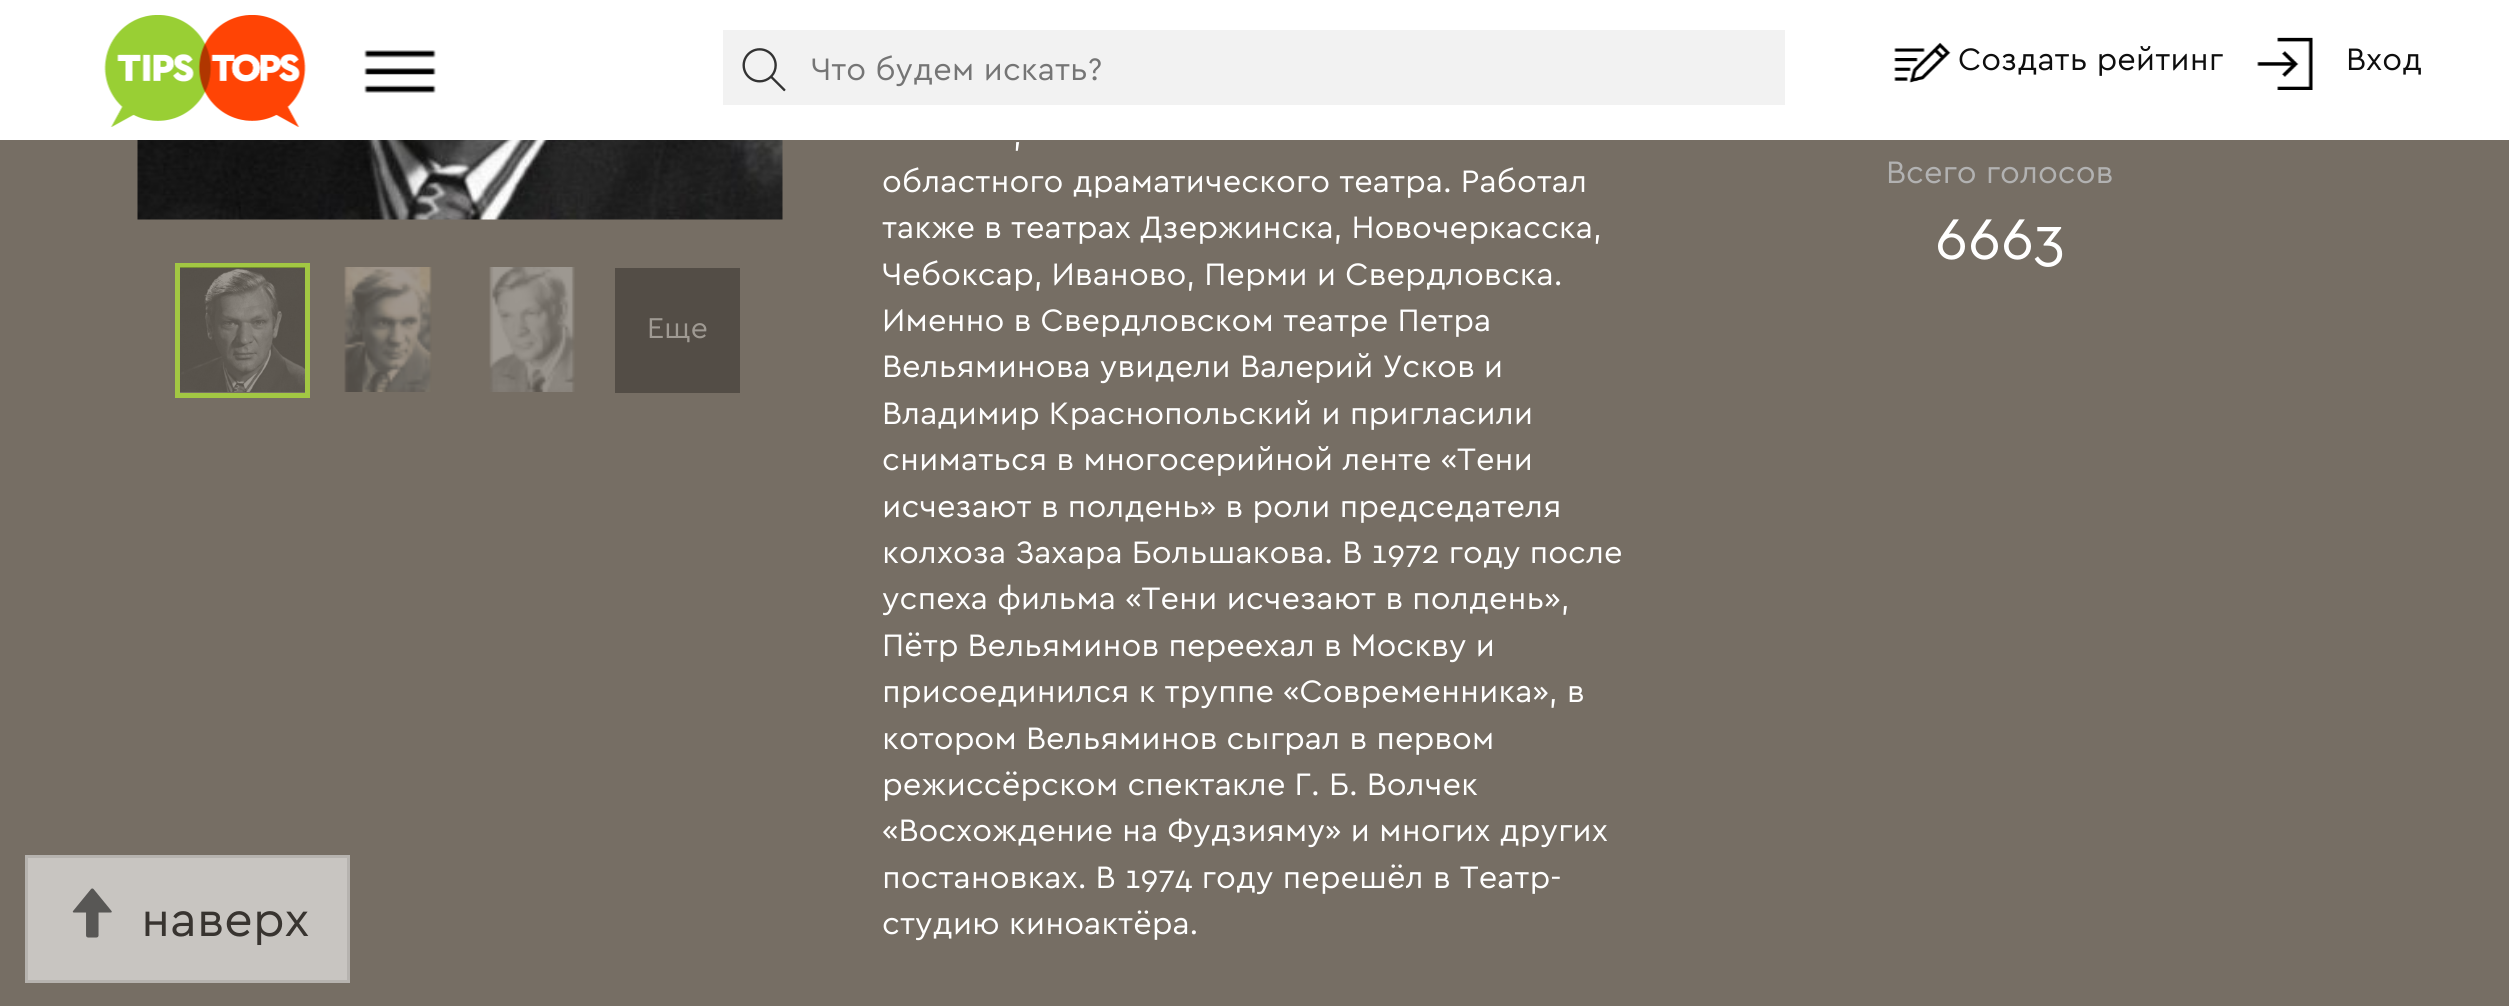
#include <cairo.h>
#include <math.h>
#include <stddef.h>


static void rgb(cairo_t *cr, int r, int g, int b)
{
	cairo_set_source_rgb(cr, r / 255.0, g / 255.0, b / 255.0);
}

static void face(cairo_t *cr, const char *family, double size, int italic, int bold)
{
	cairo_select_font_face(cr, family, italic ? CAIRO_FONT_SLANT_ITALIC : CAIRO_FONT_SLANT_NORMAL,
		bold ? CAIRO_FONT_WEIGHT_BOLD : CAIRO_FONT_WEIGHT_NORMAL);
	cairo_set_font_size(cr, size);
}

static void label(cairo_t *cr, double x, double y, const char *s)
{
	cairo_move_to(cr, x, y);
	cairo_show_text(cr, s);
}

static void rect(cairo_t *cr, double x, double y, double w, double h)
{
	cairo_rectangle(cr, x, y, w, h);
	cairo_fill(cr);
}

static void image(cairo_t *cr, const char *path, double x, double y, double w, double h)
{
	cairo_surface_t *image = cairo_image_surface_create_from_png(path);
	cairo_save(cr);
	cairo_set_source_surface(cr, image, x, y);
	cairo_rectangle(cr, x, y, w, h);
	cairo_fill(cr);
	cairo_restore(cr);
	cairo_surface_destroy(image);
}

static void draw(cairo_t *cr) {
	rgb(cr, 118, 110, 100);
	cairo_paint(cr);
	rgb(cr, 255, 255, 255);
	rect(cr, 0, 0, 2509, 140);
	image(cr, "image0.png", 104, 15, 202, 112);
	image(cr, "image1.png", 364, 50, 72, 43);
	rgb(cr, 242, 242, 242);
	rect(cr, 723, 30, 1062, 75);
	image(cr, "image2.png", 742, 48, 44, 44);
	face(cr, "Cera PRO", 32.5, 0, 0);
	rgb(cr, 117, 117, 117);
	label(cr, 811, 80, "Что будем искать?");
	image(cr, "image3.png", 1894, 42, 57, 41);
	rgb(cr, 14, 14, 14);
	label(cr, 1958, 70, "Создать рейтинг");
	image(cr, "image4.png", 2257, 37, 56, 53);
	label(cr, 2346, 70, "Вход");
	rgb(cr, 200, 197, 193);
	cairo_rectangle(cr, 26.5, 856.5, 322, 125);
	cairo_fill_preserve(cr);
	rgb(cr, 182, 179, 175);
	cairo_set_line_width(cr, 3);
	cairo_stroke(cr);
	image(cr, "image5.png", 72, 888, 40, 50);
	face(cr, "Cera PRO", 50, 0, 0);
	rgb(cr, 56, 52, 48);
	label(cr, 141, 936, "наверх");
	face(cr, "Cera PRO", 32.5, 0, 0);
	rgb(cr, 255, 255, 255);
	label(cr, 1013, 145, ",");
	label(cr, 882, 192, "областного драматического театра. Работал");
	label(cr, 882, 238, "также в театрах Дзержинска, Новочеркасска,");
	label(cr, 882, 285, "Чебоксар, Иваново, Перми и Свердловска.");
	label(cr, 882, 331, "Именно в Свердловском театре Петра");
	label(cr, 882, 377, "Вельяминова увидели Валерий Усков и");
	label(cr, 882, 424, "Владимир Краснопольский и пригласили");
	label(cr, 882, 470, "сниматься в многосерийной ленте «Тени");
	label(cr, 882, 517, "исчезают в полдень» в роли председателя");
	label(cr, 882, 563, "колхоза Захара Большакова. В 1972 году после");
	label(cr, 882, 609, "успеха фильма «Тени исчезают в полдень»,");
	label(cr, 882, 656, "Пётр Вельяминов переехал в Москву и");
	label(cr, 882, 702, "присоединился к труппе «Современника», в");
	label(cr, 882, 749, "котором Вельяминов сыграл в первом");
	label(cr, 882, 795, "режиссёрском спектакле Г. Б. Волчек");
	label(cr, 882, 841, "«Восхождение на Фудзияму» и многих других");
	label(cr, 882, 888, "постановках. В 1974 году перешёл в Театр-");
	label(cr, 882, 934, "студию киноактёра.");
	rgb(cr, 178, 178, 178);
	label(cr, 1886, 183, "Всего голосов");
	face(cr, "Cera PRO", 60, 0, 0);
	rgb(cr, 255, 255, 255);
	label(cr, 1935, 259, "6663");
	image(cr, "image6.png", 137, 140, 646, 80);
	cairo_rectangle(cr, 177.5, 265.5, 130, 130);
	rgb(cr, 162, 199, 67);
	cairo_set_line_width(cr, 5);
	cairo_stroke(cr);
	image(cr, "image7.png", 180, 267, 125, 125);
	image(cr, "image8.png", 344, 267, 88, 125);
	image(cr, "image9.png", 489, 267, 86, 125);
	rgb(cr, 83, 77, 70);
	rect(cr, 615, 268, 125, 125);
	face(cr, "Cera PRO", 30, 0, 0);
	rgb(cr, 159, 154, 147);
	label(cr, 647, 338, "Еще");
}

int main(void) {
	cairo_surface_t *surface = cairo_image_surface_create(CAIRO_FORMAT_RGB24, 2509, 1006);
	cairo_t *cr = cairo_create(surface);
	cairo_font_options_t *options = cairo_font_options_create();
	cairo_font_options_set_hint_metrics(options, CAIRO_HINT_METRICS_OFF);
	cairo_font_options_set_hint_style(options, CAIRO_HINT_STYLE_NONE);
	cairo_set_font_options(cr, options);
	cairo_set_miter_limit(cr, 4);
	draw(cr);
	cairo_surface_write_to_png(surface, "render.png");
	cairo_font_options_destroy(options);
	cairo_destroy(cr);
	cairo_surface_destroy(surface);
	return 0;
}
